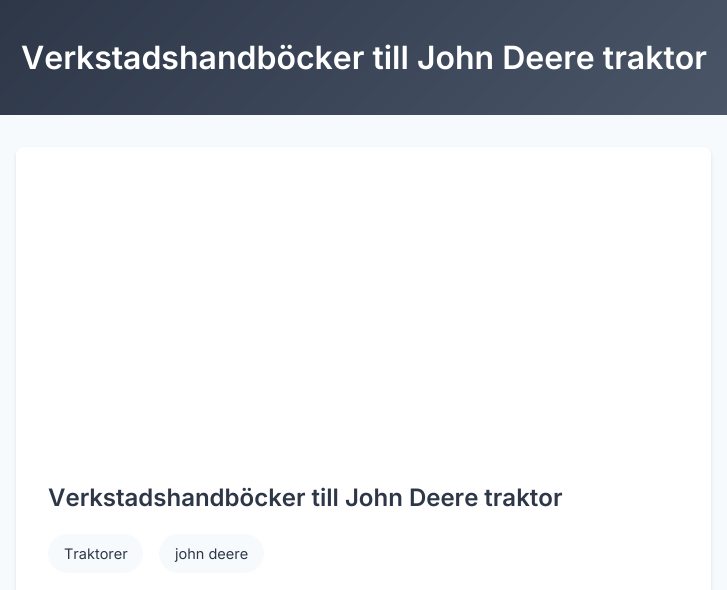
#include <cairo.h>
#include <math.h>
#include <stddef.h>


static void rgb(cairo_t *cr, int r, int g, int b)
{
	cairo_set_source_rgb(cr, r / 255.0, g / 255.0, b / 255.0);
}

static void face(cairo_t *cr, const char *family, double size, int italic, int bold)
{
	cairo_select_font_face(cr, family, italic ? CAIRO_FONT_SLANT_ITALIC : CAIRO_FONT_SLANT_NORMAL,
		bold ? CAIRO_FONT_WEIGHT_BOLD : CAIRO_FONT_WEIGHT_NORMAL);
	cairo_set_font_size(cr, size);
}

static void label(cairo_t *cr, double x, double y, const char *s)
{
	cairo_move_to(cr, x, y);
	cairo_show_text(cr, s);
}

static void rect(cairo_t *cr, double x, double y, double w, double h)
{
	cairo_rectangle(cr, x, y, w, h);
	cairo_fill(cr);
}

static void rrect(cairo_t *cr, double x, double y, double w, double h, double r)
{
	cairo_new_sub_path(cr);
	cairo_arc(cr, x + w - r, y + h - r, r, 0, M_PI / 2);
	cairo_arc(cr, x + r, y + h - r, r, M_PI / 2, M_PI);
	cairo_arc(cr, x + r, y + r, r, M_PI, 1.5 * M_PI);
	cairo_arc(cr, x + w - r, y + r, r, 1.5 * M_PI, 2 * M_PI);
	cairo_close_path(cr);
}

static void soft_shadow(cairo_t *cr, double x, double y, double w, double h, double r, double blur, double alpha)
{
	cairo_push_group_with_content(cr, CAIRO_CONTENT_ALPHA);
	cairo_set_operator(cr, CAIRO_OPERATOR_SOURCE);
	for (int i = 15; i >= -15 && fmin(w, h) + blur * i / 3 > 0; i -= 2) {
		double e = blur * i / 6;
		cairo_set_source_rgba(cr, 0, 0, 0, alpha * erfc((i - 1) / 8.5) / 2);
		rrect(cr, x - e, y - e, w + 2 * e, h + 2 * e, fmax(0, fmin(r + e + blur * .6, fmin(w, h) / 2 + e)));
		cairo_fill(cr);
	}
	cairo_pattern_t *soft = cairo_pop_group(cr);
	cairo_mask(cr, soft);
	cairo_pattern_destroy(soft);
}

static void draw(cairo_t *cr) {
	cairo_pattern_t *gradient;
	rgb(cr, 247, 250, 252);
	cairo_paint(cr);
	gradient = cairo_pattern_create_linear(153, -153, 574, 268);
	cairo_pattern_add_color_stop_rgba(gradient, 0, 0.176, 0.216, 0.282, 1);
	cairo_pattern_add_color_stop_rgba(gradient, 1, 0.29, 0.333, 0.408, 1);
	cairo_set_source(cr, gradient);
	cairo_pattern_destroy(gradient);
	rect(cr, 0, 0, 727, 115);
	face(cr, "Inter SemiBold", 32, 0, 0);
	rgb(cr, 255, 255, 255);
	label(cr, 21, 69, "Verkstadshandböcker till John Deere traktor");
	rgb(cr, 0, 0, 0);
	soft_shadow(cr, 16, 149, 695, 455, 8, 2, 0.1);
	rgb(cr, 255, 255, 255);
	rrect(cr, 16, 147, 695, 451, 8);
	cairo_fill(cr);
	face(cr, "Inter SemiBold", 24, 0, 0);
	rgb(cr, 45, 55, 72);
	label(cr, 48, 506, "Verkstadshandböcker till John Deere traktor");
	rgb(cr, 247, 250, 252);
	rrect(cr, 48, 534, 95, 39, 19.5);
	cairo_fill(cr);
	face(cr, "Inter", 14.5, 0, 0);
	rgb(cr, 45, 55, 72);
	label(cr, 64, 559, "Traktorer");
	rgb(cr, 247, 250, 252);
	rrect(cr, 159, 534, 105, 39, 19.5);
	cairo_fill(cr);
	rgb(cr, 45, 55, 72);
	label(cr, 175, 559, "john deere");
}

int main(void) {
	cairo_surface_t *surface = cairo_image_surface_create(CAIRO_FORMAT_RGB24, 727, 590);
	cairo_t *cr = cairo_create(surface);
	cairo_font_options_t *options = cairo_font_options_create();
	cairo_font_options_set_hint_metrics(options, CAIRO_HINT_METRICS_OFF);
	cairo_font_options_set_hint_style(options, CAIRO_HINT_STYLE_NONE);
	cairo_set_font_options(cr, options);
	cairo_set_miter_limit(cr, 4);
	draw(cr);
	cairo_surface_write_to_png(surface, "render.png");
	cairo_font_options_destroy(options);
	cairo_destroy(cr);
	cairo_surface_destroy(surface);
	return 0;
}
